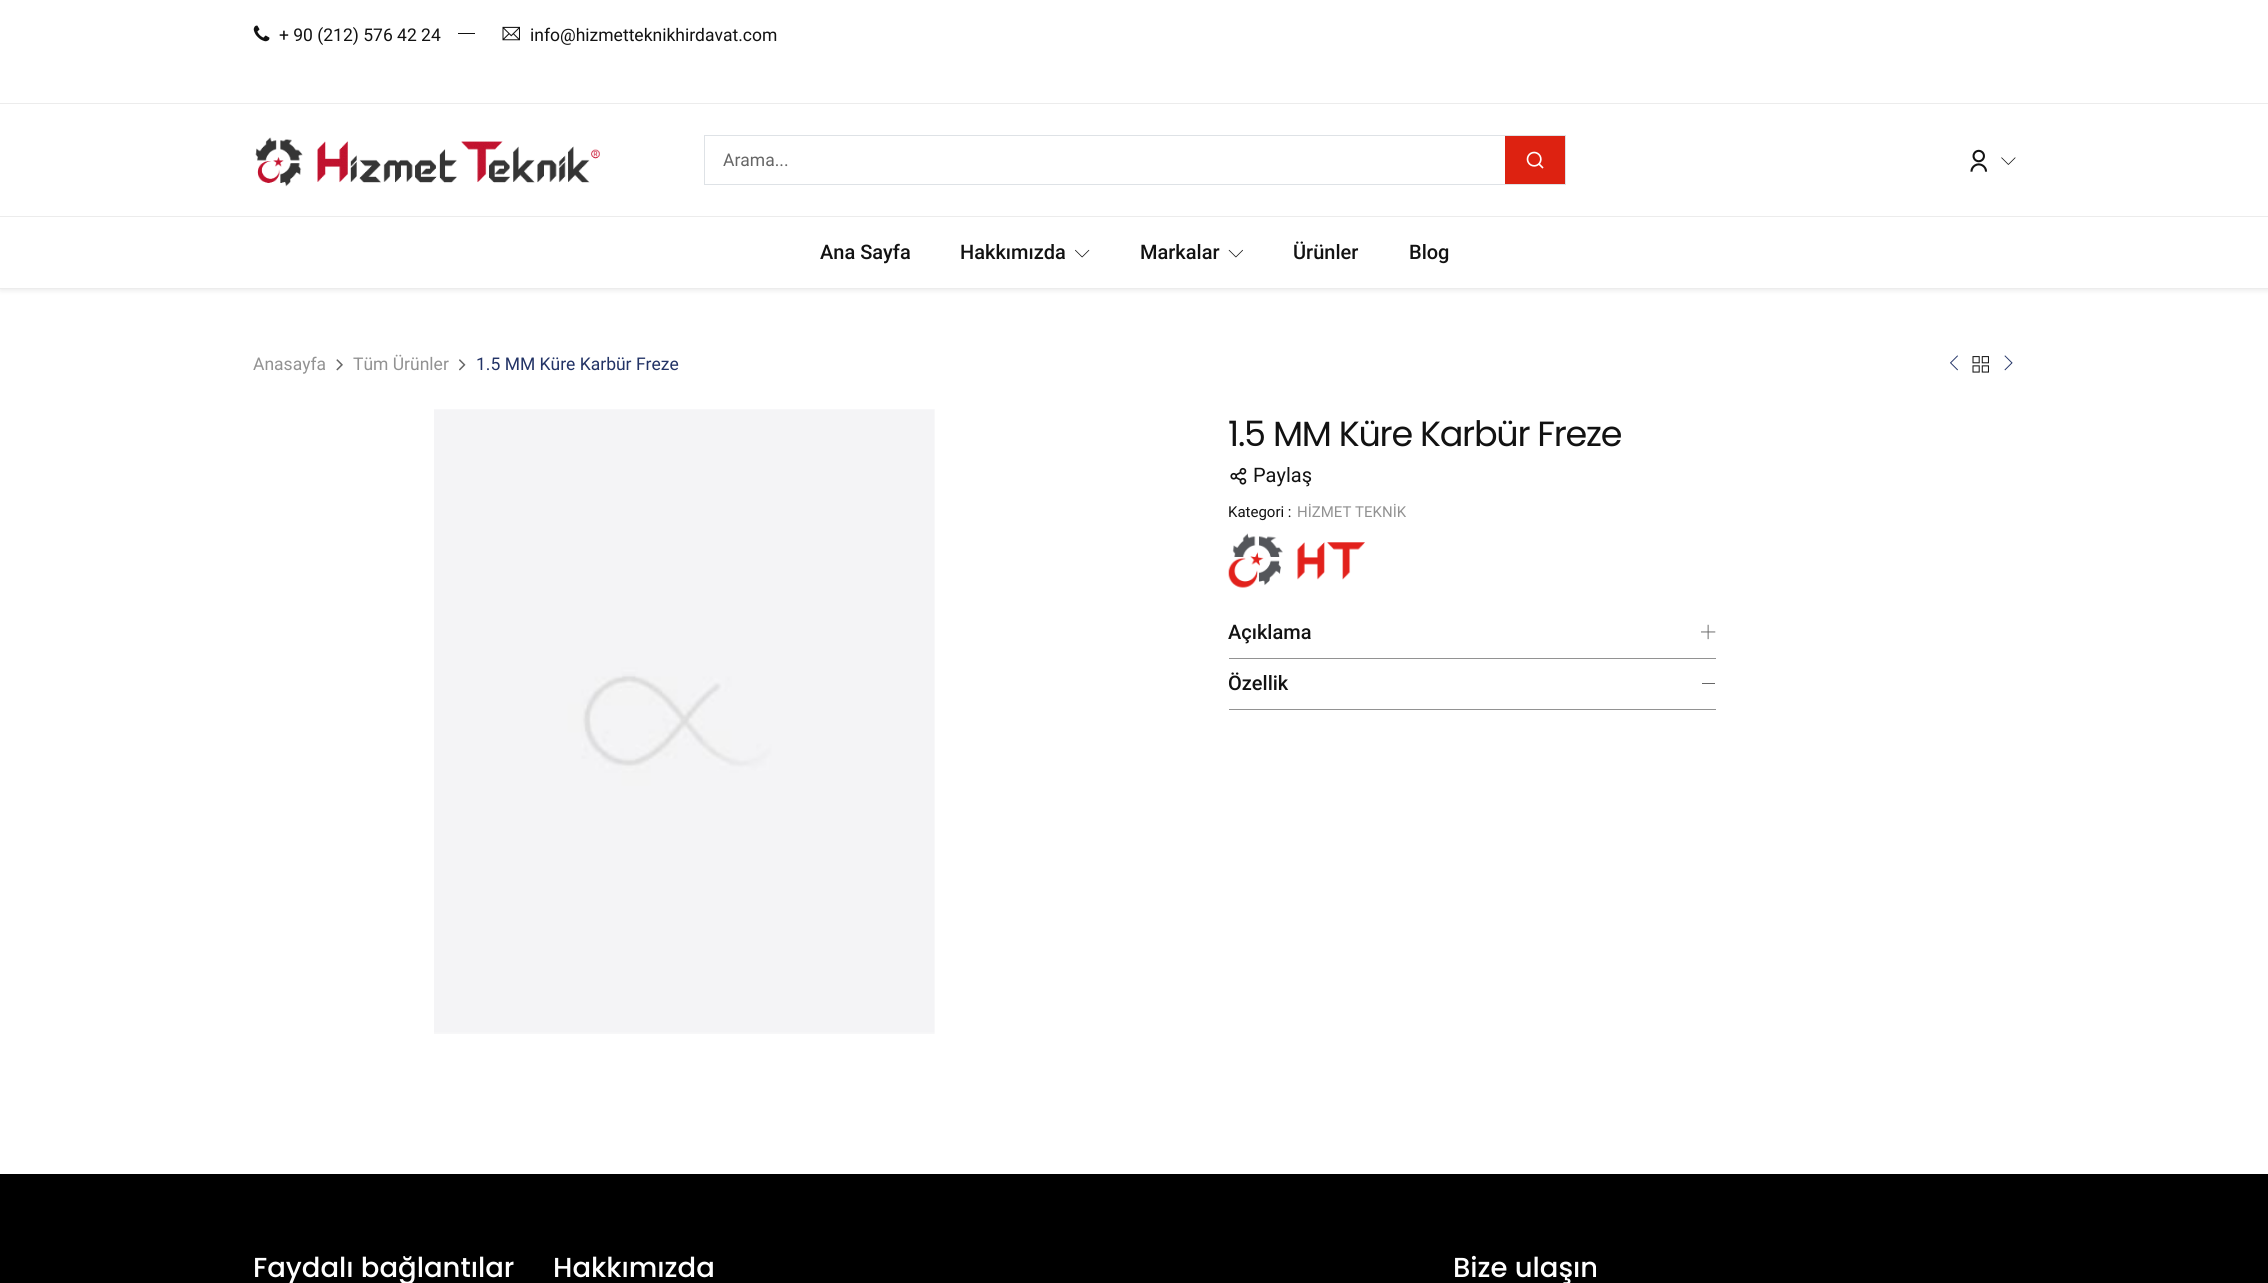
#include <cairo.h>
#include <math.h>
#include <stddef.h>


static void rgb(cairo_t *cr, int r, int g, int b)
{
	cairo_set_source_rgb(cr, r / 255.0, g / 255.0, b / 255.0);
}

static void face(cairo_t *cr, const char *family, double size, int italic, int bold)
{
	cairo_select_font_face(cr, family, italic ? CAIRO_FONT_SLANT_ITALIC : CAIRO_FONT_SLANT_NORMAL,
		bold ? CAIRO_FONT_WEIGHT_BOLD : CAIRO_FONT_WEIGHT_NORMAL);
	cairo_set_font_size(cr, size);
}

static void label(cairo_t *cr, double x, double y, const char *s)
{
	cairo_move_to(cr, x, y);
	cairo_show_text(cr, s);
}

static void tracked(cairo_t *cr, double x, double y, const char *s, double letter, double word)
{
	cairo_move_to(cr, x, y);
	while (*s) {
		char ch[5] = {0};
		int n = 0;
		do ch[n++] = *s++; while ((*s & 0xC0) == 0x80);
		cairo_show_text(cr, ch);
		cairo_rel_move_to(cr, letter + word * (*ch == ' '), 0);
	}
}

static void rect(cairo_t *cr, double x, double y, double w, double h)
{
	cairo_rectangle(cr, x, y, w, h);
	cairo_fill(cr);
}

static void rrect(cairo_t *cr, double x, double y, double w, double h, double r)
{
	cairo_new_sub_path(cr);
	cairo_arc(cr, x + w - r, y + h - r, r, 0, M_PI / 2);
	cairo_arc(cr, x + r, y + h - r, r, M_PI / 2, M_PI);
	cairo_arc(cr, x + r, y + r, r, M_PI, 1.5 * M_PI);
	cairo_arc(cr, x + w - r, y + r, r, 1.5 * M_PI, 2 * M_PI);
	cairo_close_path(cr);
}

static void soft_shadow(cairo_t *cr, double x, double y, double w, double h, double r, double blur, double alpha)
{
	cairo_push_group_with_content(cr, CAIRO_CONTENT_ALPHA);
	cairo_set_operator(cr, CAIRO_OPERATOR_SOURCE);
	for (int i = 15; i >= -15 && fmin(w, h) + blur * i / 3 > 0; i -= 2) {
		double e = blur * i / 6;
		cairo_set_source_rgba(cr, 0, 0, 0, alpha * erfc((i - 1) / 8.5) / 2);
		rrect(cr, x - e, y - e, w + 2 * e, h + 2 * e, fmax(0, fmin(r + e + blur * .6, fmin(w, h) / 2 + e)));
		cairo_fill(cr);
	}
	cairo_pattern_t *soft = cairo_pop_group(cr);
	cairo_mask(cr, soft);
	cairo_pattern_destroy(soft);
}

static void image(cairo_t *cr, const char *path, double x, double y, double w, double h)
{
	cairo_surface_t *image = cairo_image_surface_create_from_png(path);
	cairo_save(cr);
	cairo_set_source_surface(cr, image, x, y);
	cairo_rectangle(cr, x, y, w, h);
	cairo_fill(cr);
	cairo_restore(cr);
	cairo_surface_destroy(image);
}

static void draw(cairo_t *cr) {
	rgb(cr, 255, 255, 255);
	cairo_paint(cr);
	rgb(cr, 0, 0, 0);
	soft_shadow(cr, 0, 3, 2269, 288, 0, 2.5, 0.07);
	rgb(cr, 255, 255, 255);
	rect(cr, 0, 0, 2268, 288);
	rgb(cr, 236, 236, 236);
	rect(cr, 0, 103, 2268, 1);
	image(cr, "image0.png", 253, 25, 17, 17);
	face(cr, "Roboto", 17.5, 0, 0);
	rgb(cr, 18, 18, 18);
	label(cr, 279, 41, "+ 90 (212) 576 42 24");
	rect(cr, 458, 33, 17, 1);
	image(cr, "image1.png", 502, 26, 18, 15);
	label(cr, 530, 41, "info@hizmetteknikhirdavat.com");
	image(cr, "image2.png", 255, 137, 345, 50);
	cairo_rectangle(cr, 704.5, 135.5, 861, 49);
	rgb(cr, 222, 226, 230);
	cairo_set_line_width(cr, 1);
	cairo_stroke(cr);
	rgb(cr, 102, 102, 102);
	label(cr, 723, 166, "Arama...");
	rgb(cr, 221, 34, 17);
	rect(cr, 1505, 136, 60, 48);
	image(cr, "image3.png", 1526, 151, 18, 18);
	image(cr, "image4.png", 1970, 149, 18, 23);
	image(cr, "image5.png", 2001, 157, 15, 8);
	rgb(cr, 236, 236, 236);
	rect(cr, 0, 216, 2268, 1);
	rect(cr, 0, 288, 2268, 1);
	face(cr, "Roboto Medium", 20, 0, 0);
	rgb(cr, 18, 18, 18);
	label(cr, 820, 259, "Ana Sayfa");
	label(cr, 960, 259, "Hakkımızda");
	image(cr, "image6.png", 1075, 249, 15, 9);
	label(cr, 1140, 259, "Markalar");
	image(cr, "image7.png", 1228, 249, 15, 9);
	label(cr, 1293, 259, "Ürünler");
	label(cr, 1409, 259, "Blog");
	face(cr, "Roboto", 17.5, 0, 0);
	rgb(cr, 146, 146, 146);
	label(cr, 253, 370, "Anasayfa");
	image(cr, "image8.png", 336, 359, 7, 12);
	label(cr, 353, 370, "Tüm Ürünler");
	image(cr, "image9.png", 459, 359, 7, 12);
	rgb(cr, 34, 51, 102);
	label(cr, 476, 370, "1.5 MM Küre Karbür Freze");
	image(cr, "image10.png", 1950, 355, 8, 16);
	image(cr, "image11.png", 1972, 356, 17, 17);
	image(cr, "image12.png", 2004, 355, 9, 16);
	image(cr, "image13.png", 434, 409, 501, 625);
	face(cr, "Poppins", 35, 0, 0);
	rgb(cr, 18, 18, 18);
	tracked(cr, 1228, 446, "1.5 MM Küre Karbür Freze", -1.25, 0);
	image(cr, "image14.png", 1230, 467, 17, 18);
	face(cr, "Roboto", 20, 0, 0);
	label(cr, 1253, 482, "Paylaş");
	face(cr, "Roboto", 15, 0, 0);
	label(cr, 1228, 517, "Kategori :");
	rgb(cr, 146, 146, 146);
	label(cr, 1297, 517, "HİZMET TEKNİK");
	image(cr, "image15.png", 1228, 533, 137, 55);
	rect(cr, 1229, 658, 487, 1);
	face(cr, "Roboto Medium", 20, 0, 0);
	rgb(cr, 18, 18, 18);
	label(cr, 1228, 639, "Açıklama");
	image(cr, "image16.png", 1701, 624, 15, 16);
	rgb(cr, 146, 146, 146);
	rect(cr, 1229, 709, 487, 1);
	rgb(cr, 18, 18, 18);
	label(cr, 1228, 690, "Özellik");
	rgb(cr, 102, 102, 102);
	rect(cr, 1702, 683, 13, 1);
	rgb(cr, 0, 0, 0);
	rect(cr, 0, 1174, 2268, 109);
	face(cr, "Poppins Medium", 27.5, 0, 0);
	rgb(cr, 255, 255, 255);
	label(cr, 253, 1277, "Faydalı bağlantılar");
	label(cr, 553, 1277, "Hakkımızda");
	label(cr, 1453, 1277, "Bize ulaşın");
}

int main(void) {
	cairo_surface_t *surface = cairo_image_surface_create(CAIRO_FORMAT_RGB24, 2268, 1283);
	cairo_t *cr = cairo_create(surface);
	cairo_font_options_t *options = cairo_font_options_create();
	cairo_font_options_set_hint_metrics(options, CAIRO_HINT_METRICS_OFF);
	cairo_font_options_set_hint_style(options, CAIRO_HINT_STYLE_NONE);
	cairo_set_font_options(cr, options);
	cairo_set_miter_limit(cr, 4);
	draw(cr);
	cairo_surface_write_to_png(surface, "render.png");
	cairo_font_options_destroy(options);
	cairo_destroy(cr);
	cairo_surface_destroy(surface);
	return 0;
}
